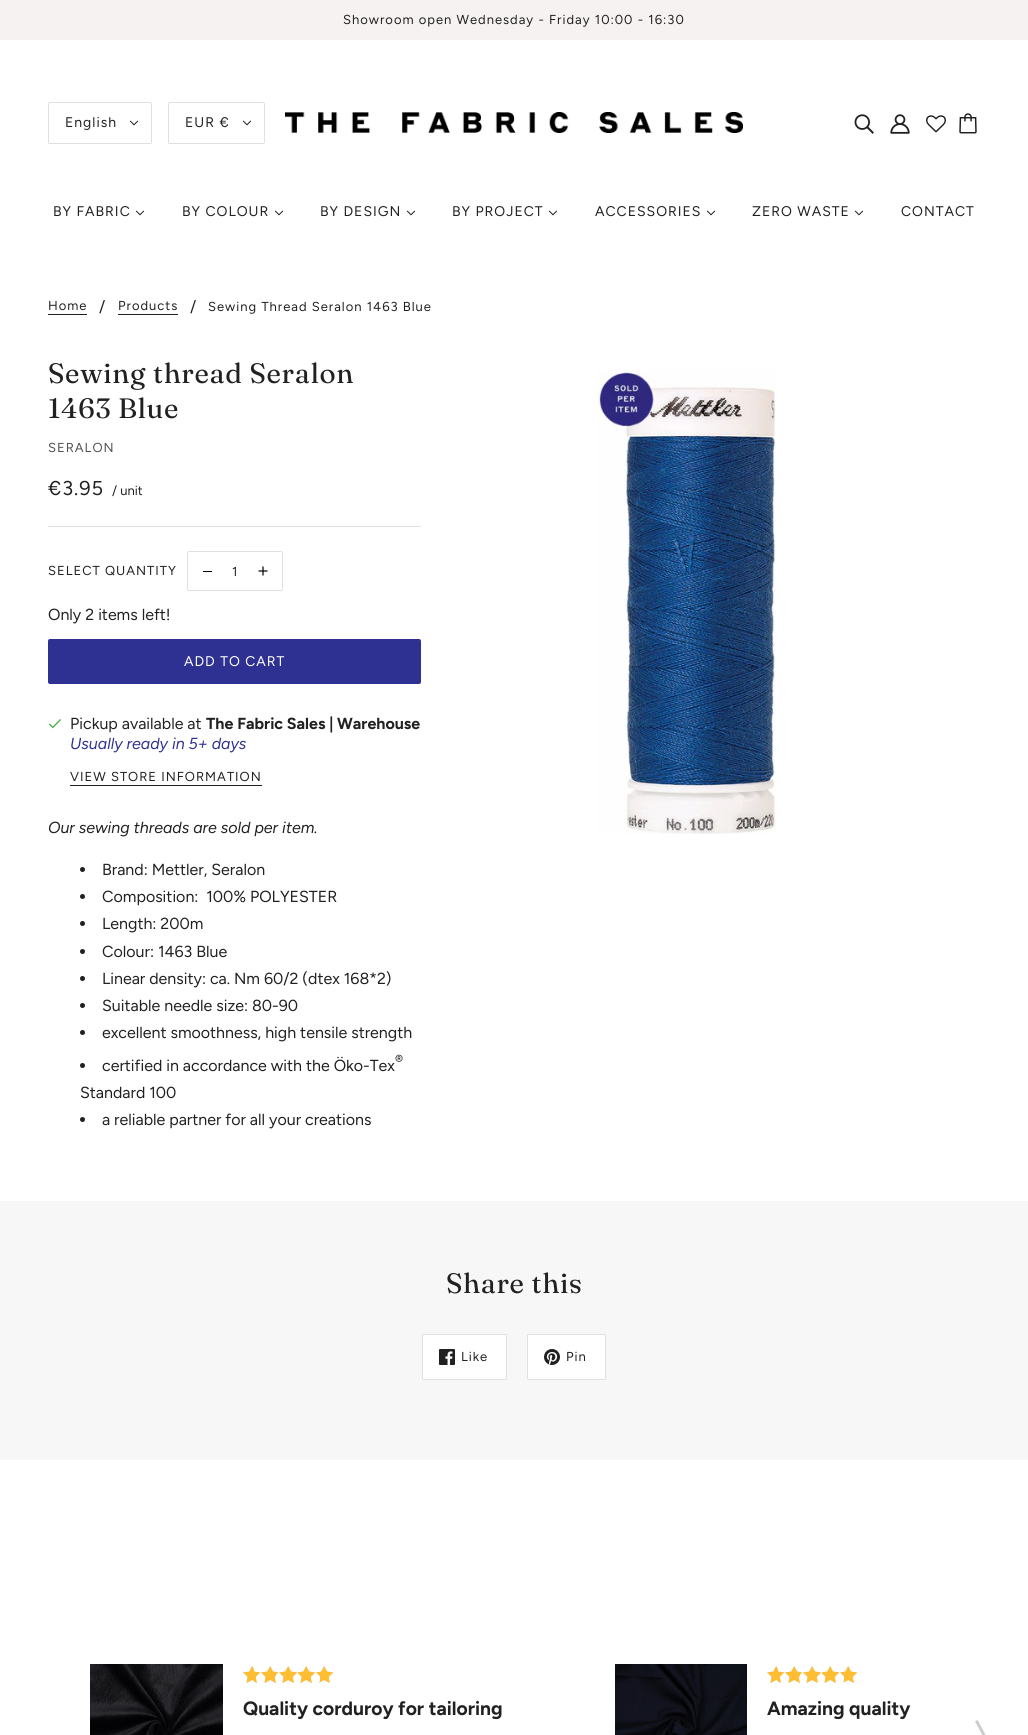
#include <cairo.h>
#include <math.h>
#include <stddef.h>


static void rgb(cairo_t *cr, int r, int g, int b)
{
	cairo_set_source_rgb(cr, r / 255.0, g / 255.0, b / 255.0);
}

static void face(cairo_t *cr, const char *family, double size, int italic, int bold)
{
	cairo_select_font_face(cr, family, italic ? CAIRO_FONT_SLANT_ITALIC : CAIRO_FONT_SLANT_NORMAL,
		bold ? CAIRO_FONT_WEIGHT_BOLD : CAIRO_FONT_WEIGHT_NORMAL);
	cairo_set_font_size(cr, size);
}

static void label(cairo_t *cr, double x, double y, const char *s)
{
	cairo_move_to(cr, x, y);
	cairo_show_text(cr, s);
}

static void tracked(cairo_t *cr, double x, double y, const char *s, double letter, double word)
{
	cairo_move_to(cr, x, y);
	while (*s) {
		char ch[5] = {0};
		int n = 0;
		do ch[n++] = *s++; while ((*s & 0xC0) == 0x80);
		cairo_show_text(cr, ch);
		cairo_rel_move_to(cr, letter + word * (*ch == ' '), 0);
	}
}

static void rect(cairo_t *cr, double x, double y, double w, double h)
{
	cairo_rectangle(cr, x, y, w, h);
	cairo_fill(cr);
}

static void rrect(cairo_t *cr, double x, double y, double w, double h, double r)
{
	cairo_new_sub_path(cr);
	cairo_arc(cr, x + w - r, y + h - r, r, 0, M_PI / 2);
	cairo_arc(cr, x + r, y + h - r, r, M_PI / 2, M_PI);
	cairo_arc(cr, x + r, y + r, r, M_PI, 1.5 * M_PI);
	cairo_arc(cr, x + w - r, y + r, r, 1.5 * M_PI, 2 * M_PI);
	cairo_close_path(cr);
}

static void image(cairo_t *cr, const char *path, double x, double y, double w, double h)
{
	cairo_surface_t *image = cairo_image_surface_create_from_png(path);
	cairo_save(cr);
	cairo_set_source_surface(cr, image, x, y);
	cairo_rectangle(cr, x, y, w, h);
	cairo_fill(cr);
	cairo_restore(cr);
	cairo_surface_destroy(image);
}

static void draw(cairo_t *cr) {
	rgb(cr, 255, 255, 255);
	cairo_paint(cr);
	rgb(cr, 247, 242, 242);
	rect(cr, 0, 0, 1028, 40);
	face(cr, "Figtree", 13, 0, 0);
	rgb(cr, 33, 33, 33);
	tracked(cr, 343, 24, "Showroom open Wednesday - Friday 10:00 - 16:30", 1, 0);
	rrect(cr, 48.5, 102.5, 103, 41, 1.5);
	rgb(cr, 224, 224, 224);
	cairo_set_line_width(cr, 1);
	cairo_stroke(cr);
	face(cr, "Figtree", 14, 0, 0);
	rgb(cr, 33, 33, 33);
	tracked(cr, 65, 127, "English", 1, 0);
	image(cr, "image0.png", 129, 120, 10, 6);
	rrect(cr, 168.5, 102.5, 96, 41, 1.5);
	rgb(cr, 224, 224, 224);
	cairo_stroke(cr);
	rgb(cr, 33, 33, 33);
	tracked(cr, 185, 127, "EUR €", 1, 0);
	image(cr, "image0.png", 242, 120, 10, 6);
	image(cr, "image1.png", 285, 112, 458, 21);
	image(cr, "image2.png", 854, 114, 20, 20);
	image(cr, "image3.png", 890, 114, 20, 20);
	image(cr, "image4.png", 926, 115, 20, 18);
	image(cr, "image5.png", 959, 113, 18, 21);
	tracked(cr, 53, 216, "BY FABRIC", 1, 0);
	image(cr, "image0.png", 135, 210, 10, 6);
	tracked(cr, 182, 216, "BY COLOUR", 1, 0);
	image(cr, "image0.png", 274, 210, 10, 6);
	tracked(cr, 320, 216, "BY DESIGN", 1, 0);
	image(cr, "image0.png", 406, 210, 10, 6);
	tracked(cr, 452, 216, "BY PROJECT", 1, 0);
	image(cr, "image0.png", 548, 210, 10, 6);
	tracked(cr, 595, 216, "ACCESSORIES", 1, 0);
	image(cr, "image0.png", 706, 210, 10, 6);
	tracked(cr, 752, 216, "ZERO WASTE", 1, 0);
	image(cr, "image0.png", 854, 210, 10, 6);
	tracked(cr, 901, 216, "CONTACT", 1, 0);
	face(cr, "Figtree", 13, 0, 0);
	tracked(cr, 48, 310, "Home", 1, 0);
	rect(cr, 48, 314, 39, 1);
	face(cr, "Figtree", 16, 0, 0);
	label(cr, 99, 312, "/");
	face(cr, "Figtree", 13, 0, 0);
	tracked(cr, 118, 310, "Products", 1, 0);
	rect(cr, 118, 314, 60, 1);
	face(cr, "Figtree", 16, 0, 0);
	label(cr, 190, 312, "/");
	face(cr, "Figtree", 13, 0, 0);
	tracked(cr, 208, 311, "Sewing Thread Seralon 1463 Blue", 1, 0);
	face(cr, "Fraunces", 28, 0, 0);
	tracked(cr, 48, 383, "Sewing thread Seralon", 0.7, 0);
	tracked(cr, 48, 418, "1463 Blue", 0.7, 0);
	face(cr, "Figtree", 13, 0, 0);
	rgb(cr, 81, 81, 81);
	tracked(cr, 48, 452, "SERALON", 1, 0);
	image(cr, "image6.png", 597, 370, 179, 464);
	face(cr, "Figtree", 20, 0, 0);
	rgb(cr, 33, 33, 33);
	tracked(cr, 48, 495, "€3.95", 1, 0);
	face(cr, "Figtree", 13, 0, 0);
	label(cr, 112, 495, "/ unit");
	rgb(cr, 224, 224, 224);
	rect(cr, 48, 526, 373, 1);
	rgb(cr, 33, 33, 33);
	tracked(cr, 48, 575, "SELECT QUANTITY", 1, 0);
	rrect(cr, 187.5, 551.5, 95, 39, 1.5);
	rgb(cr, 224, 224, 224);
	cairo_stroke(cr);
	rgb(cr, 0, 0, 0);
	rect(cr, 203, 571, 9, 1);
	rgb(cr, 33, 33, 33);
	tracked(cr, 232, 576, "1", 1, 0);
	image(cr, "image7.png", 258, 566, 10, 10);
	face(cr, "Figtree", 16, 0, 0);
	label(cr, 48, 620, "Only 2 items left!");
	rgb(cr, 47, 49, 146);
	rrect(cr, 48, 639, 373, 45, 2);
	cairo_fill(cr);
	face(cr, "Figtree", 14, 0, 0);
	rgb(cr, 255, 255, 255);
	tracked(cr, 184, 666, "ADD TO CART", 1, 0);
	image(cr, "image8.png", 48, 719, 13, 10);
	face(cr, "Figtree", 16, 0, 0);
	rgb(cr, 33, 33, 33);
	label(cr, 70, 729, "Pickup available at");
	face(cr, "Figtree", 16, 0, 1);
	label(cr, 206, 729, "The Fabric Sales | Warehouse");
	face(cr, "Figtree", 16, 1, 0);
	rgb(cr, 47, 49, 146);
	label(cr, 70, 749, "Usually ready in 5+ days");
	face(cr, "Figtree", 13, 0, 0);
	rgb(cr, 33, 33, 33);
	tracked(cr, 70, 781, "VIEW STORE INFORMATION", 1, 0);
	rect(cr, 70, 785, 192, 1);
	face(cr, "Figtree", 16, 1, 0);
	label(cr, 48, 833, "Our sewing threads are sold per item.");
	cairo_new_path(cr);
	cairo_arc(cr, 82.5, 869.5, 2.5, 0, 2 * M_PI);
	cairo_fill(cr);
	face(cr, "Figtree", 16, 0, 0);
	label(cr, 102, 875, "Brand: Mettler, Seralon");
	cairo_new_path(cr);
	cairo_arc(cr, 82.5, 896.5, 2.5, 0, 2 * M_PI);
	cairo_fill(cr);
	label(cr, 102, 902, "Composition:  100% POLYESTER");
	cairo_new_path(cr);
	cairo_arc(cr, 82.5, 923.5, 2.5, 0, 2 * M_PI);
	cairo_fill(cr);
	label(cr, 102, 929, "Length: 200m");
	cairo_new_path(cr);
	cairo_arc(cr, 82.5, 951.5, 2.5, 0, 2 * M_PI);
	cairo_fill(cr);
	label(cr, 102, 957, "Colour: 1463 Blue");
	cairo_new_path(cr);
	cairo_arc(cr, 82.5, 978.5, 2.5, 0, 2 * M_PI);
	cairo_fill(cr);
	label(cr, 102, 984, "Linear density: ca. Nm 60/2 (dtex 168*2)");
	cairo_new_path(cr);
	cairo_arc(cr, 82.5, 1005.5, 2.5, 0, 2 * M_PI);
	cairo_fill(cr);
	label(cr, 102, 1011, "Suitable needle size: 80-90");
	cairo_new_path(cr);
	cairo_arc(cr, 82.5, 1032.5, 2.5, 0, 2 * M_PI);
	cairo_fill(cr);
	label(cr, 102, 1038, "excellent smoothness, high tensile strength");
	cairo_new_path(cr);
	cairo_arc(cr, 82.5, 1065.5, 2.5, 0, 2 * M_PI);
	cairo_fill(cr);
	label(cr, 102, 1071, "certified in accordance with the Öko-Tex");
	face(cr, "Figtree", 13, 0, 0);
	label(cr, 395, 1064, "®");
	face(cr, "Figtree", 16, 0, 0);
	label(cr, 80, 1098, "Standard 100");
	cairo_new_path(cr);
	cairo_arc(cr, 82.5, 1119.5, 2.5, 0, 2 * M_PI);
	cairo_fill(cr);
	label(cr, 102, 1125, "a reliable partner for all your creations");
	rgb(cr, 247, 247, 247);
	rect(cr, 0, 1201, 1028, 259);
	face(cr, "Fraunces", 28, 0, 0);
	rgb(cr, 33, 33, 33);
	tracked(cr, 446, 1293, "Share this", 0.7, 0);
	rgb(cr, 255, 255, 255);
	rrect(cr, 422.5, 1334.5, 84, 45, 1.5);
	cairo_fill_preserve(cr);
	rgb(cr, 224, 224, 224);
	cairo_stroke(cr);
	image(cr, "image9.png", 439, 1349, 16, 16);
	face(cr, "Figtree", 13, 0, 0);
	rgb(cr, 33, 33, 33);
	tracked(cr, 461, 1361, "Like", 1, 0);
	rgb(cr, 255, 255, 255);
	rrect(cr, 527.5, 1334.5, 78, 45, 1.5);
	cairo_fill_preserve(cr);
	rgb(cr, 224, 224, 224);
	cairo_stroke(cr);
	image(cr, "image10.png", 544, 1349, 16, 16);
	rgb(cr, 33, 33, 33);
	tracked(cr, 566, 1361, "Pin", 1, 0);
	image(cr, "image11.png", 90, 1664, 133, 71);
	image(cr, "image12.png", 243, 1666, 90, 17);
	image(cr, "image13.png", 243, 1666, 90, 17);
	face(cr, "Figtree", 19.25, 0, 1);
	label(cr, 243, 1715, "Quality corduroy for tailoring");
	image(cr, "image14.png", 615, 1664, 132, 71);
	image(cr, "image12.png", 767, 1666, 90, 17);
	image(cr, "image13.png", 767, 1666, 90, 17);
	label(cr, 767, 1715, "Amazing quality");
	image(cr, "image15.png", 975, 1720, 11, 15);
}

int main(void) {
	cairo_surface_t *surface = cairo_image_surface_create(CAIRO_FORMAT_RGB24, 1028, 1735);
	cairo_t *cr = cairo_create(surface);
	cairo_font_options_t *options = cairo_font_options_create();
	cairo_font_options_set_hint_metrics(options, CAIRO_HINT_METRICS_OFF);
	cairo_font_options_set_hint_style(options, CAIRO_HINT_STYLE_NONE);
	cairo_set_font_options(cr, options);
	cairo_set_miter_limit(cr, 4);
	draw(cr);
	cairo_surface_write_to_png(surface, "render.png");
	cairo_font_options_destroy(options);
	cairo_destroy(cr);
	cairo_surface_destroy(surface);
	return 0;
}
